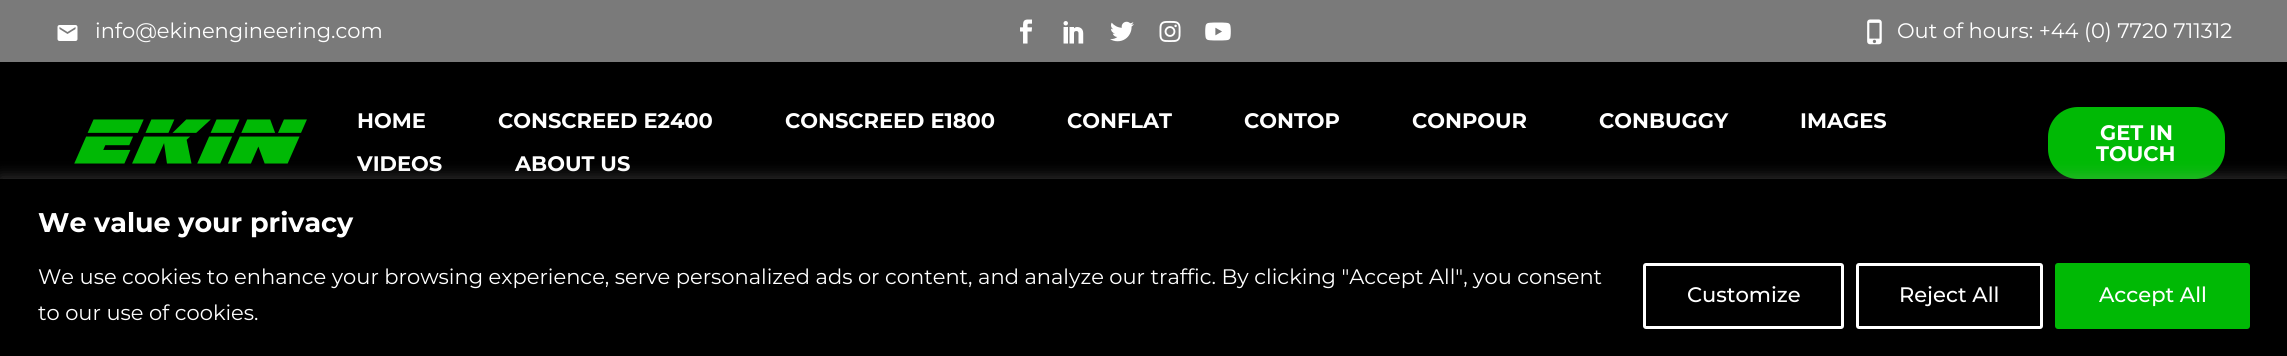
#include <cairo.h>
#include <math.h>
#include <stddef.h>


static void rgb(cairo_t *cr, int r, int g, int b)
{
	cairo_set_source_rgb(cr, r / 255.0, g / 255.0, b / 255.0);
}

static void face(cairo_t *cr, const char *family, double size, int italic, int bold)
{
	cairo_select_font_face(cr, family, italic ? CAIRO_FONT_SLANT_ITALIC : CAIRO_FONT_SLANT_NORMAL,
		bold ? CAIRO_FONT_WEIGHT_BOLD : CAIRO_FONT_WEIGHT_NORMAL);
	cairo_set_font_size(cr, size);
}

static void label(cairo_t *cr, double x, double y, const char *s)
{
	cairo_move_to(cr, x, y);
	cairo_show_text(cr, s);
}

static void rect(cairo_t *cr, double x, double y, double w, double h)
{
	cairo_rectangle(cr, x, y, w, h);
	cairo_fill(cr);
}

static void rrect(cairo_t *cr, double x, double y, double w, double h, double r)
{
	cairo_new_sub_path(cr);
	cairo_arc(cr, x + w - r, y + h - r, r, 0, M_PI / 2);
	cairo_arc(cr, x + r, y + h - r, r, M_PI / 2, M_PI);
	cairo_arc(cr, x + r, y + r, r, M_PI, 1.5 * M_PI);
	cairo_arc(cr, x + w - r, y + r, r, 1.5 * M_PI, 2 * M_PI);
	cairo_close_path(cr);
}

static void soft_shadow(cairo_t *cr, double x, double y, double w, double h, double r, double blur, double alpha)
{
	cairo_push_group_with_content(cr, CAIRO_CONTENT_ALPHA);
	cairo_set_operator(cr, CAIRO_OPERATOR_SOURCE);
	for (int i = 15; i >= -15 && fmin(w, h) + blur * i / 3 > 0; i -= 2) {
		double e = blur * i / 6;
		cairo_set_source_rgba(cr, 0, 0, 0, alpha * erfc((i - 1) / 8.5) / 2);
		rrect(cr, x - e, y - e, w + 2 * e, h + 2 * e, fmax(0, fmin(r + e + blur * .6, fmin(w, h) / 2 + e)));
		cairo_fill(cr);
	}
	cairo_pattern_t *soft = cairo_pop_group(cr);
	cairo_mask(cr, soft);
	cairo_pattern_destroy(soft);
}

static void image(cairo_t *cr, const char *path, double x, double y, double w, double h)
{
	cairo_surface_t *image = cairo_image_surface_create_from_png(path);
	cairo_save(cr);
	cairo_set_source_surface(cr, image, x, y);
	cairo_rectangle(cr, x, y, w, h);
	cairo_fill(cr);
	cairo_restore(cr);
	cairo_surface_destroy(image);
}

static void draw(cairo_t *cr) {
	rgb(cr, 122, 122, 122);
	cairo_paint(cr);
	image(cr, "image0.png", 57, 25, 21, 16);
	face(cr, "Montserrat", 21, 0, 0);
	rgb(cr, 255, 255, 255);
	label(cr, 95, 38, "info@ekinengineering.com");
	image(cr, "image1.png", 1020, 19, 12, 25);
	image(cr, "image2.png", 1063, 21, 21, 23);
	image(cr, "image3.png", 1110, 21, 24, 21);
	image(cr, "image4.png", 1159, 20, 22, 22);
	image(cr, "image5.png", 1205, 22, 26, 19);
	image(cr, "image6.png", 1867, 19, 15, 26);
	label(cr, 1897, 38, "Out of hours: +44 (0) 7720 711312");
	rgb(cr, 0, 0, 0);
	rect(cr, 0, 62, 2287, 117);
	image(cr, "image7.png", 74, 119, 233, 45);
	face(cr, "Montserrat", 21, 0, 1);
	rgb(cr, 255, 255, 255);
	label(cr, 357, 128, "HOME");
	label(cr, 498, 128, "CONSCREED E2400");
	label(cr, 785, 128, "CONSCREED E1800");
	label(cr, 1067, 128, "CONFLAT");
	label(cr, 1244, 128, "CONTOP");
	label(cr, 1412, 128, "CONPOUR");
	label(cr, 1599, 128, "CONBUGGY");
	label(cr, 1800, 128, "IMAGES");
	label(cr, 357, 171, "VIDEOS");
	label(cr, 515, 171, "ABOUT US");
	rgb(cr, 0, 185, 5);
	rrect(cr, 2048, 107, 177, 72, 30);
	cairo_fill(cr);
	rgb(cr, 255, 255, 255);
	label(cr, 2100, 140, "GET IN");
	label(cr, 2096, 161, "TOUCH");
	rgb(cr, 172, 171, 171);
	soft_shadow(cr, 0, 177, 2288, 179, 0, 7.5, 0.3);
	rgb(cr, 0, 0, 0);
	rect(cr, 0, 179, 2287, 177);
	face(cr, "Montserrat", 27, 0, 1);
	rgb(cr, 255, 255, 255);
	label(cr, 38, 232, "We value your privacy");
	face(cr, "Montserrat", 21, 0, 0);
	label(cr, 38, 284, "We use cookies to enhance your browsing experience, serve personalized ads or content, and analyze our traffic. By clicking \"Accept All\", you consent");
	label(cr, 38, 320, "to our use of cookies.");
	rrect(cr, 1644.5, 264.5, 198, 63, 1.5);
	cairo_set_line_width(cr, 3);
	cairo_stroke(cr);
	face(cr, "Montserrat Medium", 21, 0, 0);
	label(cr, 1687, 302, "Customize");
	rrect(cr, 1857.5, 264.5, 184, 63, 1.5);
	cairo_stroke(cr);
	label(cr, 1899, 302, "Reject All");
	rgb(cr, 0, 185, 5);
	rrect(cr, 2056.5, 264.5, 192, 63, 1.5);
	cairo_fill_preserve(cr);
	cairo_stroke(cr);
	rgb(cr, 255, 255, 255);
	label(cr, 2099, 302, "Accept All");
}

int main(void) {
	cairo_surface_t *surface = cairo_image_surface_create(CAIRO_FORMAT_RGB24, 2287, 356);
	cairo_t *cr = cairo_create(surface);
	cairo_font_options_t *options = cairo_font_options_create();
	cairo_font_options_set_hint_metrics(options, CAIRO_HINT_METRICS_OFF);
	cairo_font_options_set_hint_style(options, CAIRO_HINT_STYLE_NONE);
	cairo_set_font_options(cr, options);
	cairo_set_miter_limit(cr, 4);
	draw(cr);
	cairo_surface_write_to_png(surface, "render.png");
	cairo_font_options_destroy(options);
	cairo_destroy(cr);
	cairo_surface_destroy(surface);
	return 0;
}
